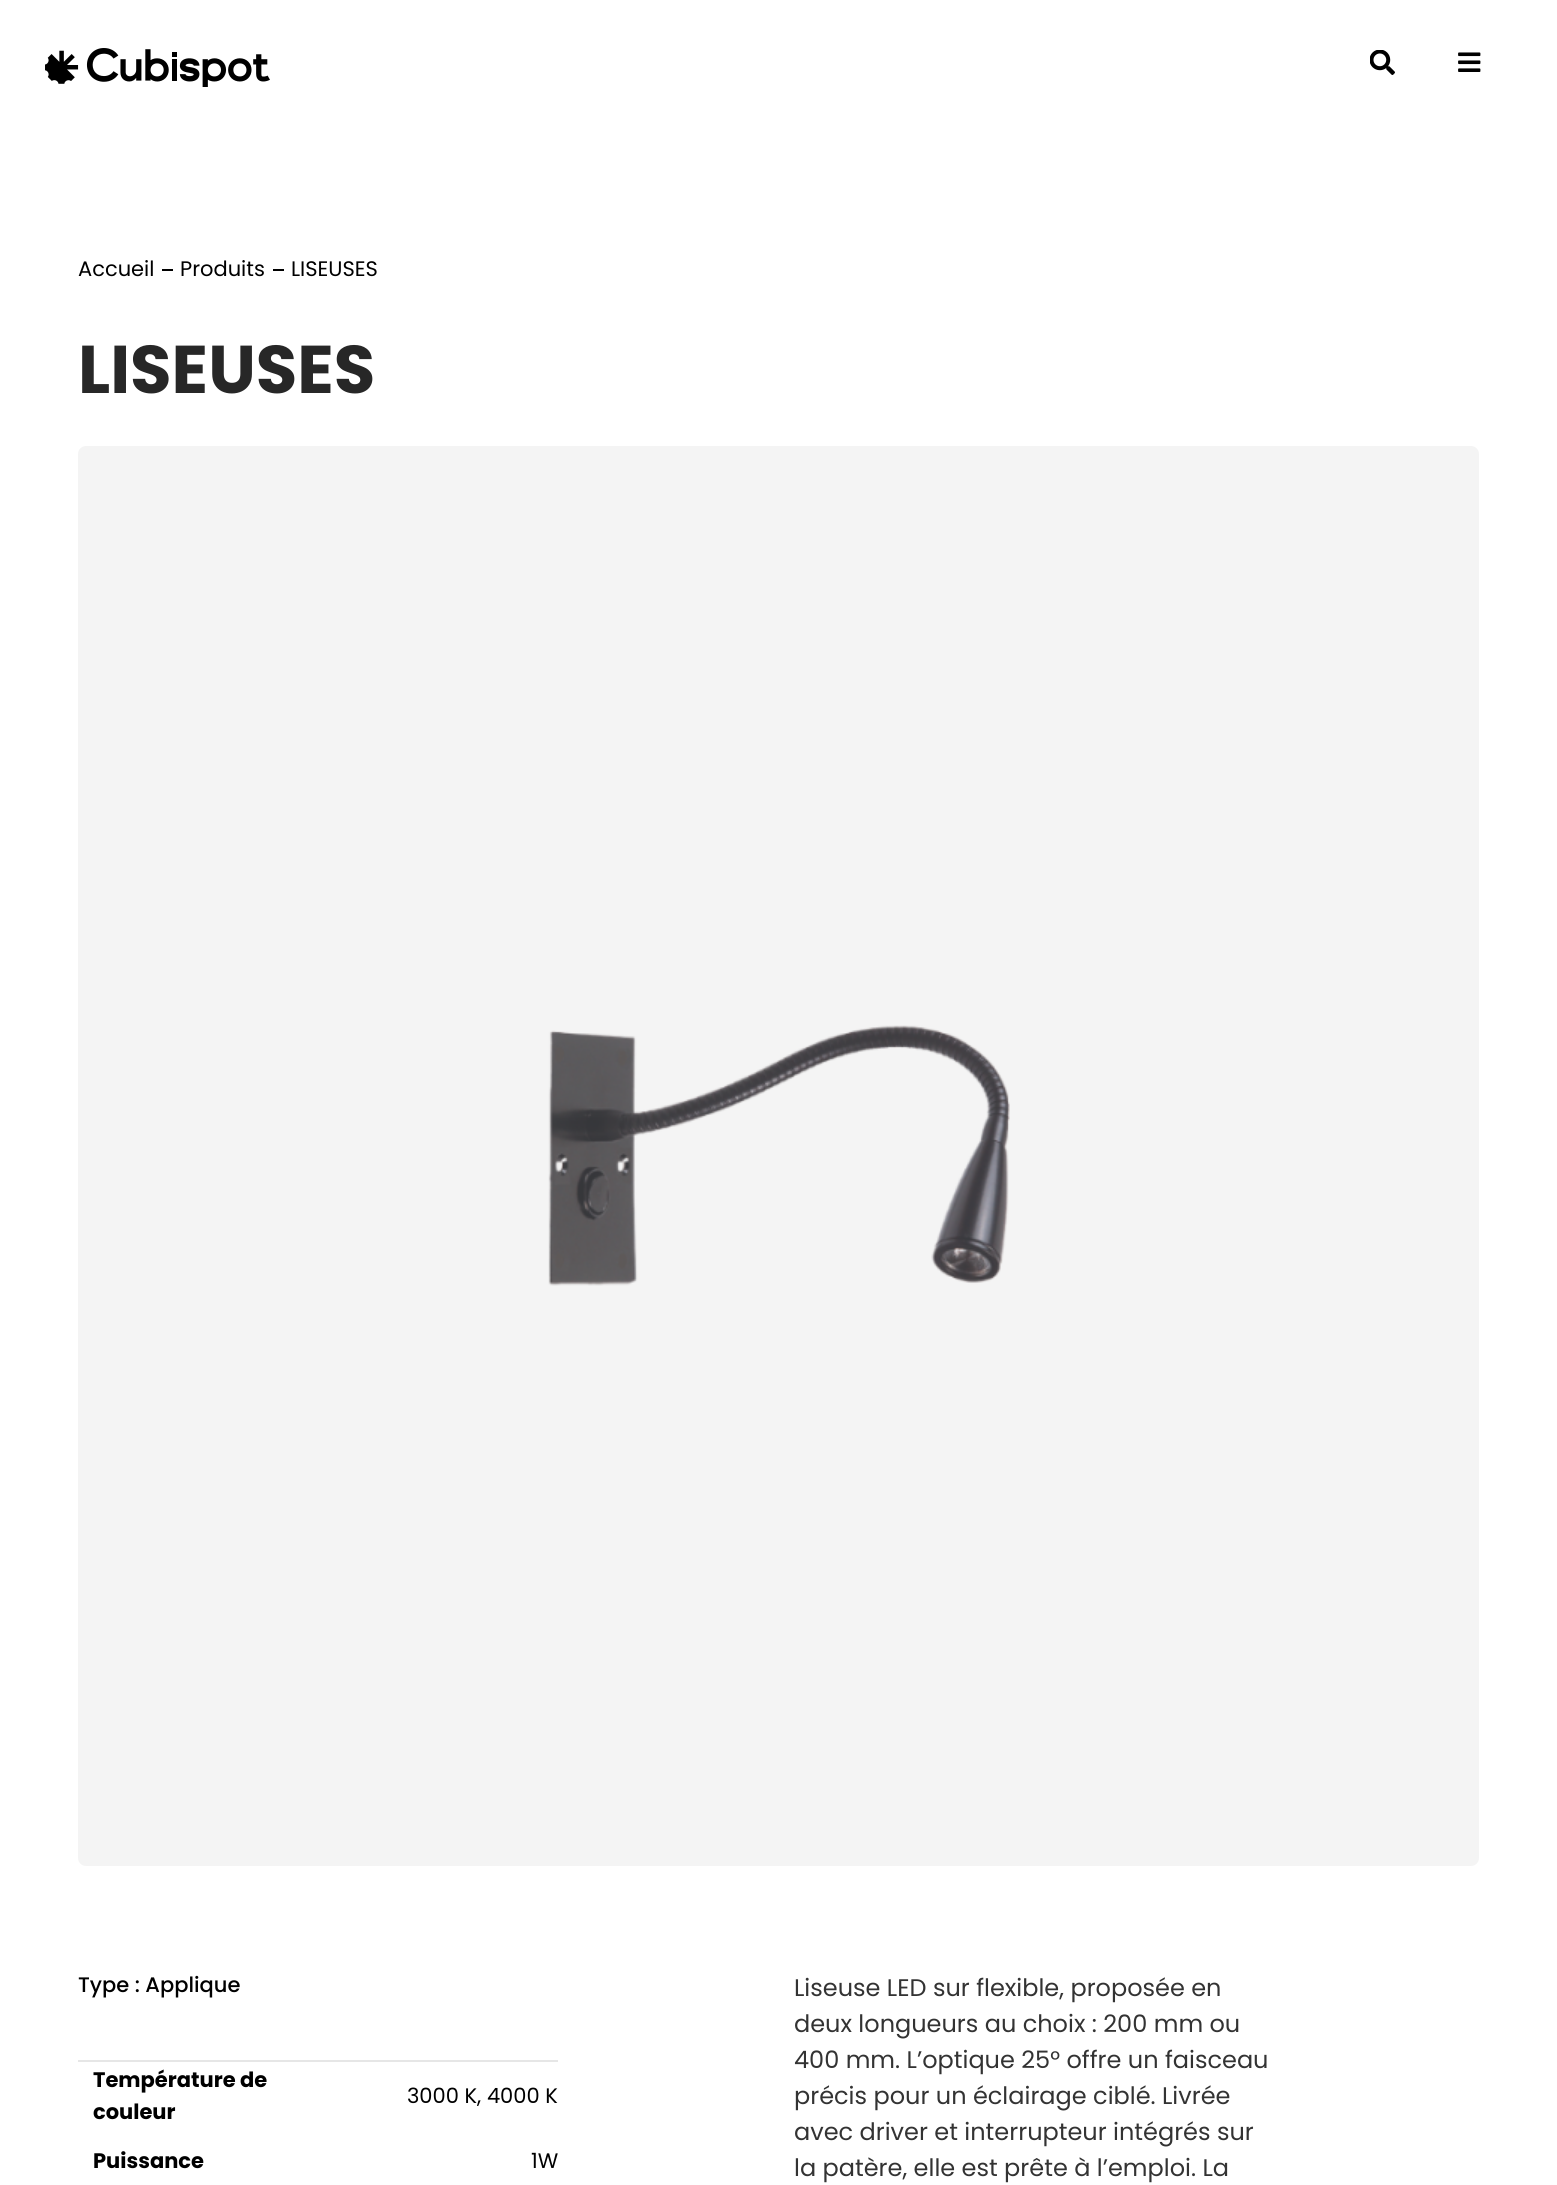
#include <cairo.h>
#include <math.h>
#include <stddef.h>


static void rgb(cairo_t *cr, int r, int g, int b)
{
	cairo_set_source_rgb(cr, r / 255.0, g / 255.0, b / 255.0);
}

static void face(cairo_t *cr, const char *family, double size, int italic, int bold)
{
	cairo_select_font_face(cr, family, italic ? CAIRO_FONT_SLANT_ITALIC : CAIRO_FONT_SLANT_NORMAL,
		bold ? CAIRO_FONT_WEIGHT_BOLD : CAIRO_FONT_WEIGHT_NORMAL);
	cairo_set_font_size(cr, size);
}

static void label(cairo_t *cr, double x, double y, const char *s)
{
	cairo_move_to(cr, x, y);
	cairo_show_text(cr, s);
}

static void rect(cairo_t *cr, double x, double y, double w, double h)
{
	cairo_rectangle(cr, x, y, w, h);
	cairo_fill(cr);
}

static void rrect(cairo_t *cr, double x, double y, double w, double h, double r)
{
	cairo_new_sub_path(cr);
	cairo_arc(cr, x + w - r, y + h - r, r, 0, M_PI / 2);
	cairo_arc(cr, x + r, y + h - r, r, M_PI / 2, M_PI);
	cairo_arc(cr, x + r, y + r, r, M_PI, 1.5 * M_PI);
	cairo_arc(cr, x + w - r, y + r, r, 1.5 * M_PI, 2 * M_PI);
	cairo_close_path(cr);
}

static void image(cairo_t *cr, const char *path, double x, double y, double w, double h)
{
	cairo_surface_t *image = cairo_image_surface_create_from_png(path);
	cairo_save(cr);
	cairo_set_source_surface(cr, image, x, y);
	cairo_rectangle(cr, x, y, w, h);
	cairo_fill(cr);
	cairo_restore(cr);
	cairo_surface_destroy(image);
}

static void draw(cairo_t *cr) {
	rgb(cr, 255, 255, 255);
	cairo_paint(cr);
	image(cr, "image0.png", 45, 48, 225, 39);
	image(cr, "image1.png", 1370, 50, 25, 25);
	image(cr, "image2.png", 1458, 52, 23, 20);
	face(cr, "Poppins", 21, 0, 0);
	rgb(cr, 0, 0, 0);
	label(cr, 78, 276, "Accueil");
	rect(cr, 162, 269, 11, 2);
	label(cr, 180, 276, "Produits");
	rect(cr, 273, 269, 11, 2);
	label(cr, 291, 276, "LISEUSES");
	face(cr, "Poppins", 67.5, 0, 1);
	rgb(cr, 39, 39, 39);
	label(cr, 78, 393, "LISEUSES");
	rgb(cr, 244, 244, 244);
	rrect(cr, 78, 446, 1401, 1420, 8);
	cairo_fill(cr);
	image(cr, "image3.png", 548, 1025, 462, 261);
	face(cr, "Poppins Medium", 21, 0, 0);
	rgb(cr, 0, 0, 0);
	label(cr, 78, 1992, "Type : Applique");
	rgb(cr, 230, 230, 230);
	rect(cr, 78, 2060, 480, 2);
	face(cr, "Poppins", 21, 0, 1);
	rgb(cr, 0, 0, 0);
	label(cr, 93, 2087, "Température de");
	label(cr, 93, 2119, "couleur");
	face(cr, "Poppins", 21, 0, 0);
	label(cr, 407, 2103, "3000 K, 4000 K");
	face(cr, "Poppins", 21, 0, 1);
	label(cr, 93, 2168, "Puissance");
	face(cr, "Poppins", 21, 0, 0);
	label(cr, 531, 2168, "1W");
	face(cr, "Poppins", 24, 0, 0);
	rgb(cr, 51, 51, 51);
	label(cr, 794, 1996, "Liseuse LED sur flexible, proposée en");
	label(cr, 794, 2032, "deux longueurs au choix : 200 mm ou");
	label(cr, 794, 2068, "400 mm. L’optique 25° offre un faisceau");
	label(cr, 794, 2104, "précis pour un éclairage ciblé. Livrée");
	label(cr, 794, 2140, "avec driver et interrupteur intégrés sur");
	label(cr, 794, 2176, "la patère, elle est prête à l’emploi. La");
}

int main(void) {
	cairo_surface_t *surface = cairo_image_surface_create(CAIRO_FORMAT_RGB24, 1557, 2185);
	cairo_t *cr = cairo_create(surface);
	cairo_font_options_t *options = cairo_font_options_create();
	cairo_font_options_set_hint_metrics(options, CAIRO_HINT_METRICS_OFF);
	cairo_font_options_set_hint_style(options, CAIRO_HINT_STYLE_NONE);
	cairo_set_font_options(cr, options);
	cairo_set_miter_limit(cr, 4);
	draw(cr);
	cairo_surface_write_to_png(surface, "render.png");
	cairo_font_options_destroy(options);
	cairo_destroy(cr);
	cairo_surface_destroy(surface);
	return 0;
}
